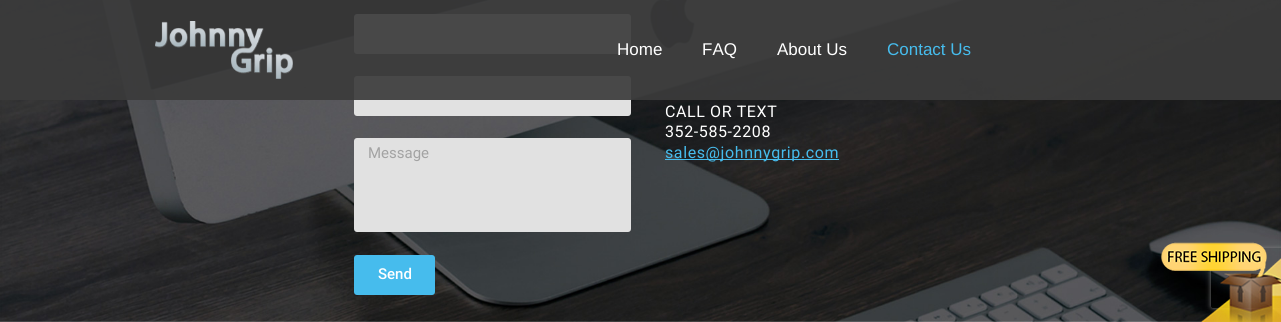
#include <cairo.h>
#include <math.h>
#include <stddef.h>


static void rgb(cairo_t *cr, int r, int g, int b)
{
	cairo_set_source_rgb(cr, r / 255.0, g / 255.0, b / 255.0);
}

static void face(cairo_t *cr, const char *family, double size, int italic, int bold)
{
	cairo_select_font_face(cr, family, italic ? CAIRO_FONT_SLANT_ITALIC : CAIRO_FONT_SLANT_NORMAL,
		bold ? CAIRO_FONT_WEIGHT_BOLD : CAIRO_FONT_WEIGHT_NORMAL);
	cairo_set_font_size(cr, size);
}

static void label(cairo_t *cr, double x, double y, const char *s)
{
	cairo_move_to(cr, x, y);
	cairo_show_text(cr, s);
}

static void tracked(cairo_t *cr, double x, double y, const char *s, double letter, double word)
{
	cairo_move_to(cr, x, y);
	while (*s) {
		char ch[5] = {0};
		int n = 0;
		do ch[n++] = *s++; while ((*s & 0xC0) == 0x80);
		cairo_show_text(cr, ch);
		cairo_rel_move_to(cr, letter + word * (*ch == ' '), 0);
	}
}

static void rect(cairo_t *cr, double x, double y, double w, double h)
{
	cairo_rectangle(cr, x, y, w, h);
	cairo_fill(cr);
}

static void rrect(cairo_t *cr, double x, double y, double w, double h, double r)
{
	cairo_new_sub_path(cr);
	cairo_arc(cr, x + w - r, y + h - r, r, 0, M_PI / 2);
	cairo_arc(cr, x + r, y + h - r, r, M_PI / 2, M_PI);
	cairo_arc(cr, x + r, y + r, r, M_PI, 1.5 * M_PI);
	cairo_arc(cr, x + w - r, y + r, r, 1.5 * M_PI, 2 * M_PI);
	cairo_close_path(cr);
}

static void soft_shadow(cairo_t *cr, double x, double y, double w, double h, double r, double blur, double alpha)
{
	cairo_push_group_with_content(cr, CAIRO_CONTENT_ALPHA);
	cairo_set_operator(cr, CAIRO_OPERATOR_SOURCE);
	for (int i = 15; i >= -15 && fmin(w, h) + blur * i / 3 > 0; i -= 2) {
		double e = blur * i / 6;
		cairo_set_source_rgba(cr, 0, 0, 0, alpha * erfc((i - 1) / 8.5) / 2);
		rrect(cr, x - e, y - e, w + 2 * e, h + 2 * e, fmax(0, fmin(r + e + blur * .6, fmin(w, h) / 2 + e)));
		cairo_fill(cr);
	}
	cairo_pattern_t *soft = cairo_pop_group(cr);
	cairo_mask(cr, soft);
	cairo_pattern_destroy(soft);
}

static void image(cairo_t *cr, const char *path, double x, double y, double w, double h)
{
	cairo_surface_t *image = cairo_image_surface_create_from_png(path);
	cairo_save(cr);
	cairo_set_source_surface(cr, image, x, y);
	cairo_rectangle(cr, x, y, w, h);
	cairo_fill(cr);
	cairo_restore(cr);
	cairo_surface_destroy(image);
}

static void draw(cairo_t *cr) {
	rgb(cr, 255, 255, 255);
	cairo_paint(cr);
	image(cr, "image1.png", 0, 0, 1281, 322);
	rgb(cr, 225, 225, 225);
	rrect(cr, 354, 14, 277, 40, 3);
	cairo_fill(cr);
	rrect(cr, 354, 76, 277, 40, 3);
	cairo_fill(cr);
	cairo_set_source_rgba(cr, 0.231, 0.231, 0.231, 0.92);
	rect(cr, 0, 0, 1281, 100);
	image(cr, "image0.png", 155, 21, 138, 58);
	face(cr, "Liberation Sans", 17, 0, 0);
	rgb(cr, 255, 255, 255);
	label(cr, 617, 55, "Home");
	label(cr, 702, 55, "FAQ");
	label(cr, 777, 55, "About Us");
	rgb(cr, 70, 188, 237);
	label(cr, 887, 55, "Contact Us");
	face(cr, "Roboto", 16, 0, 0);
	rgb(cr, 255, 255, 255);
	tracked(cr, 665, 117, "CALL OR TEXT", 0.6, 0);
	tracked(cr, 665, 137, "352-585-2208", 0.6, 0);
	rgb(cr, 70, 188, 237);
	rect(cr, 665, 159, 174, 1);
	tracked(cr, 665, 158, "sales@johnnygrip.com", 0.6, 0);
	rgb(cr, 225, 225, 225);
	rrect(cr, 354, 138, 277, 94, 3);
	cairo_fill(cr);
	face(cr, "Roboto", 15, 0, 0);
	rgb(cr, 163, 163, 163);
	label(cr, 368, 158, "Message");
	rgb(cr, 70, 188, 237);
	rrect(cr, 354, 255, 81, 40, 3);
	cairo_fill(cr);
	face(cr, "Roboto Medium", 15, 0, 0);
	rgb(cr, 255, 255, 255);
	label(cr, 378, 279, "Send");
	cairo_save(cr);
	cairo_set_fill_rule(cr, CAIRO_FILL_RULE_EVEN_ODD);
	cairo_new_path(cr);
	cairo_move_to(cr, 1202, 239);
	cairo_line_to(cr, 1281, 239);
	cairo_line_to(cr, 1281, 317);
	cairo_line_to(cr, 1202, 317);
	cairo_close_path(cr);
	cairo_move_to(cr, 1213, 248);
	cairo_line_to(cr, 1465, 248);
	cairo_curve_to(cr, 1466, 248, 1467, 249, 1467, 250);
	cairo_line_to(cr, 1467, 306);
	cairo_curve_to(cr, 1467, 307, 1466, 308, 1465, 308);
	cairo_line_to(cr, 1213, 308);
	cairo_curve_to(cr, 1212, 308, 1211, 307, 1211, 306);
	cairo_line_to(cr, 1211, 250);
	cairo_curve_to(cr, 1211, 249, 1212, 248, 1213, 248);
	cairo_close_path(cr);
	cairo_clip(cr);
	rgb(cr, 128, 128, 128);
	soft_shadow(cr, 1211, 248, 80, 60, 2, 2.5, 1);
	cairo_restore(cr);
	image(cr, "image2.png", 1161, 242, 120, 80);
}

int main(void) {
	cairo_surface_t *surface = cairo_image_surface_create(CAIRO_FORMAT_RGB24, 1281, 322);
	cairo_t *cr = cairo_create(surface);
	cairo_font_options_t *options = cairo_font_options_create();
	cairo_font_options_set_hint_metrics(options, CAIRO_HINT_METRICS_OFF);
	cairo_font_options_set_hint_style(options, CAIRO_HINT_STYLE_NONE);
	cairo_set_font_options(cr, options);
	cairo_set_miter_limit(cr, 4);
	draw(cr);
	cairo_surface_write_to_png(surface, "render.png");
	cairo_font_options_destroy(options);
	cairo_destroy(cr);
	cairo_surface_destroy(surface);
	return 0;
}
